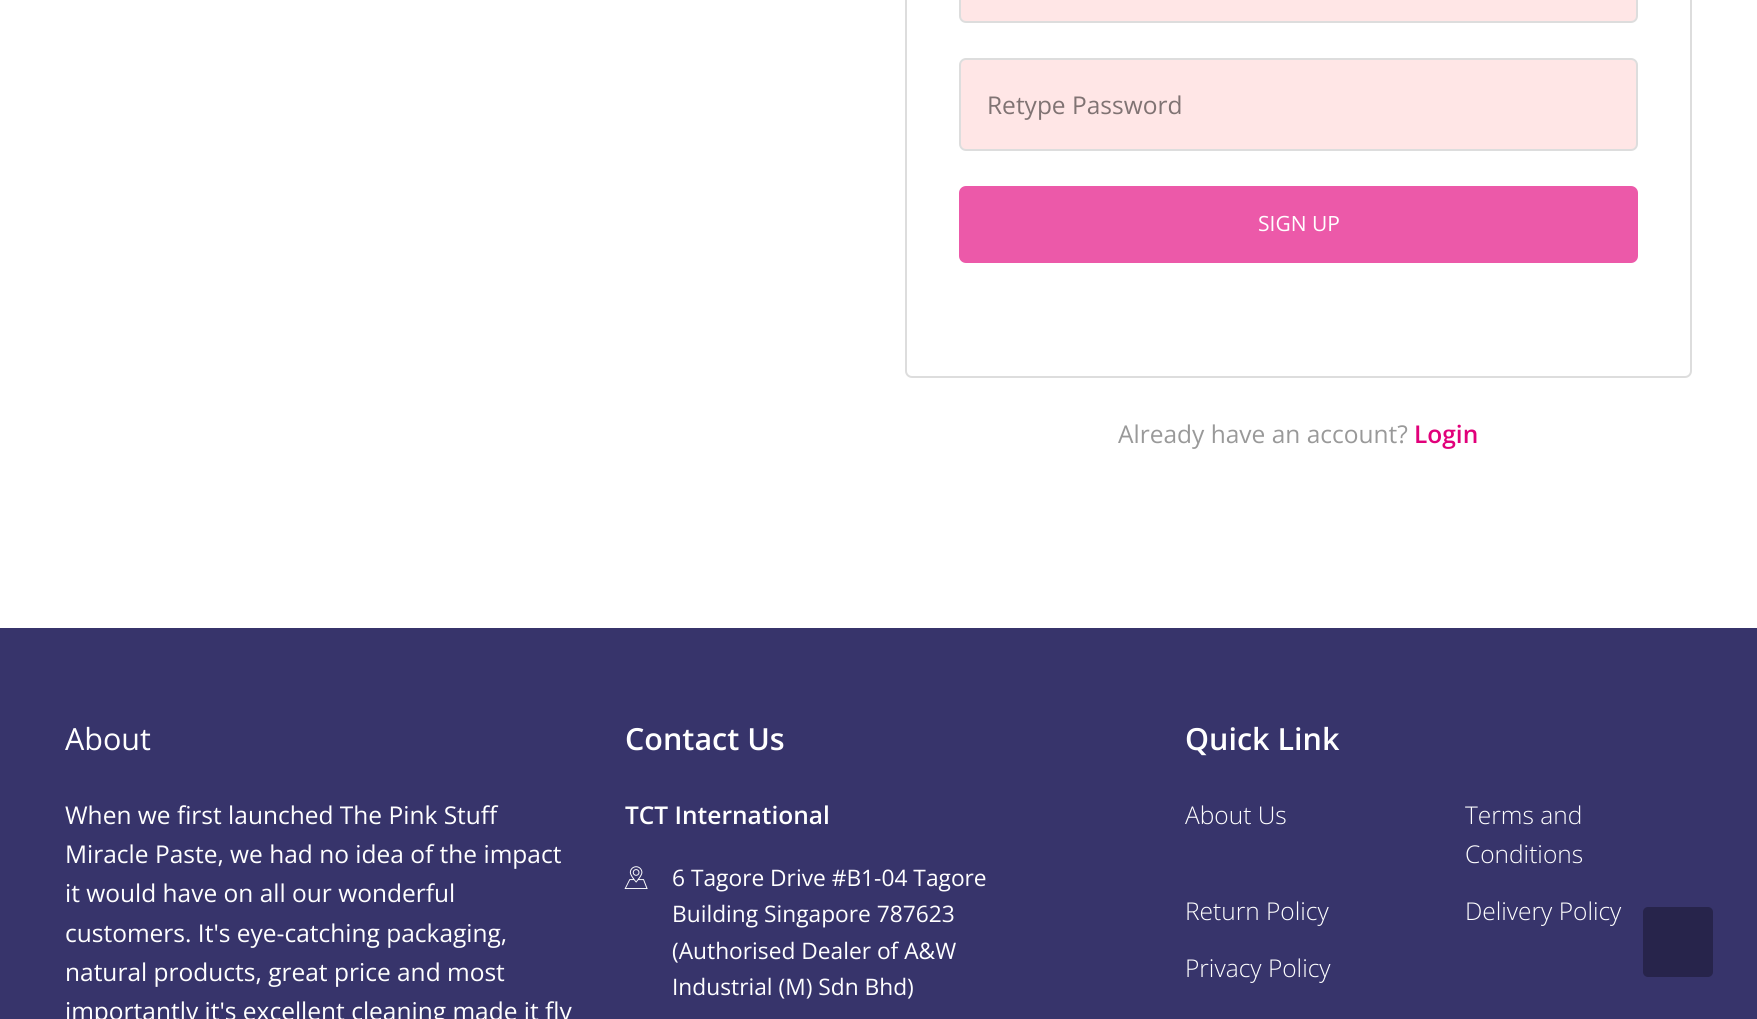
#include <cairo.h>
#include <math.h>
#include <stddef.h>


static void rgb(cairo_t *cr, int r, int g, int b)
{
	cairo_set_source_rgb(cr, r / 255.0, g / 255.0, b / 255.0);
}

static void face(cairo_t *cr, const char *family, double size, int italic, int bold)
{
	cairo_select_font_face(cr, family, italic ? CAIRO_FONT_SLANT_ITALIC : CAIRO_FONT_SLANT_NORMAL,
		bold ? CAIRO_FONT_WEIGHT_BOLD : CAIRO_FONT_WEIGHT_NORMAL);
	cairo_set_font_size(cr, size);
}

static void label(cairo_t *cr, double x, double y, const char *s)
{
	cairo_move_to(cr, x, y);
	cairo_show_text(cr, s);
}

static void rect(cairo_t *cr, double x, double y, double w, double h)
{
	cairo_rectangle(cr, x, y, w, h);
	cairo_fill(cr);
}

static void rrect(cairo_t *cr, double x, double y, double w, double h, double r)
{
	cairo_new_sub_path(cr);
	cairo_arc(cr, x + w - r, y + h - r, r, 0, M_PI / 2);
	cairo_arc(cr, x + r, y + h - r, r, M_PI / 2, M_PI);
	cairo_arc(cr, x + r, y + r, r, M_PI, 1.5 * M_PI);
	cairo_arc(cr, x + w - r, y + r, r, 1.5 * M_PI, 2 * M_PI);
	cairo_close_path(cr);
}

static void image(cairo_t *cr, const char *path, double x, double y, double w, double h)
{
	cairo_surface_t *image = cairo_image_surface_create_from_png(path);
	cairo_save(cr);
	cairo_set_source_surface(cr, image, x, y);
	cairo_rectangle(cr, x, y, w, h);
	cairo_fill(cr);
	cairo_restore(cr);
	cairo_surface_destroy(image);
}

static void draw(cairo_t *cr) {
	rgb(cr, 255, 255, 255);
	cairo_paint(cr);
	rrect(cr, 906, -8, 785, 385, 6);
	rgb(cr, 221, 221, 221);
	cairo_stroke(cr);
	rgb(cr, 255, 230, 230);
	rrect(cr, 961, -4, 675, 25, 4);
	cairo_fill(cr);
	rrect(cr, 960, -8, 677, 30, 6);
	rgb(cr, 221, 221, 221);
	cairo_stroke(cr);
	rgb(cr, 255, 230, 230);
	rrect(cr, 961, 60, 675, 89, 4);
	cairo_fill(cr);
	rrect(cr, 960, 59, 677, 91, 6);
	rgb(cr, 221, 221, 221);
	cairo_stroke(cr);
	face(cr, "Open Sans", 24.5, 0, 0);
	rgb(cr, 128, 115, 115);
	label(cr, 987, 114, "Retype Password");
	rgb(cr, 236, 89, 169);
	rrect(cr, 960, 187, 677, 75, 6);
	cairo_fill_preserve(cr);
	cairo_stroke(cr);
	face(cr, "Open Sans", 21, 0, 0);
	rgb(cr, 255, 255, 255);
	label(cr, 1258, 231, "SIGN UP");
	face(cr, "Open Sans", 24.5, 0, 0);
	rgb(cr, 153, 153, 153);
	label(cr, 1118, 443, "Already have an account?");
	face(cr, "Open Sans SemiBold", 24.5, 0, 0);
	rgb(cr, 225, 0, 122);
	label(cr, 1414, 443, "Login");
	rgb(cr, 55, 52, 107);
	rect(cr, 0, 628, 1757, 391);
	face(cr, "Open Sans", 30.5, 0, 0);
	rgb(cr, 255, 255, 255);
	label(cr, 65, 750, "About");
	face(cr, "Open Sans", 24.5, 0, 0);
	label(cr, 65, 824, "When we first launched The Pink Stuff");
	label(cr, 65, 863, "Miracle Paste, we had no idea of the impact");
	label(cr, 65, 902, "it would have on all our wonderful");
	label(cr, 65, 942, "customers. It's eye-catching packaging,");
	label(cr, 65, 981, "natural products, great price and most");
	label(cr, 65, 1020, "importantly it's excellent cleaning made it fly");
	face(cr, "Open Sans SemiBold", 30.5, 0, 0);
	label(cr, 625, 750, "Contact Us");
	face(cr, "Open Sans SemiBold", 24.5, 0, 0);
	label(cr, 625, 824, "TCT International");
	image(cr, "image0.png", 624, 866, 24, 23);
	face(cr, "Open Sans", 22.75, 0, 0);
	label(cr, 672, 886, "6 Tagore Drive #B1-04 Tagore");
	label(cr, 672, 922, "Building Singapore 787623");
	label(cr, 672, 959, "(Authorised Dealer of A&W");
	label(cr, 672, 995, "Industrial (M) Sdn Bhd)");
	face(cr, "Open Sans SemiBold", 30.5, 0, 0);
	label(cr, 1185, 750, "Quick Link");
	face(cr, "Open Sans Light", 24.5, 0, 0);
	label(cr, 1185, 824, "About Us");
	label(cr, 1465, 824, "Terms and");
	label(cr, 1465, 863, "Conditions");
	label(cr, 1185, 920, "Return Policy");
	label(cr, 1465, 920, "Delivery Policy");
	label(cr, 1185, 977, "Privacy Policy");
	rgb(cr, 39, 36, 75);
	rrect(cr, 1643, 907, 70, 70, 5);
	cairo_fill(cr);
}

int main(void) {
	cairo_surface_t *surface = cairo_image_surface_create(CAIRO_FORMAT_RGB24, 1757, 1019);
	cairo_t *cr = cairo_create(surface);
	cairo_font_options_t *options = cairo_font_options_create();
	cairo_font_options_set_hint_metrics(options, CAIRO_HINT_METRICS_OFF);
	cairo_font_options_set_hint_style(options, CAIRO_HINT_STYLE_NONE);
	cairo_set_font_options(cr, options);
	cairo_set_miter_limit(cr, 4);
	draw(cr);
	cairo_surface_write_to_png(surface, "render.png");
	cairo_font_options_destroy(options);
	cairo_destroy(cr);
	cairo_surface_destroy(surface);
	return 0;
}
